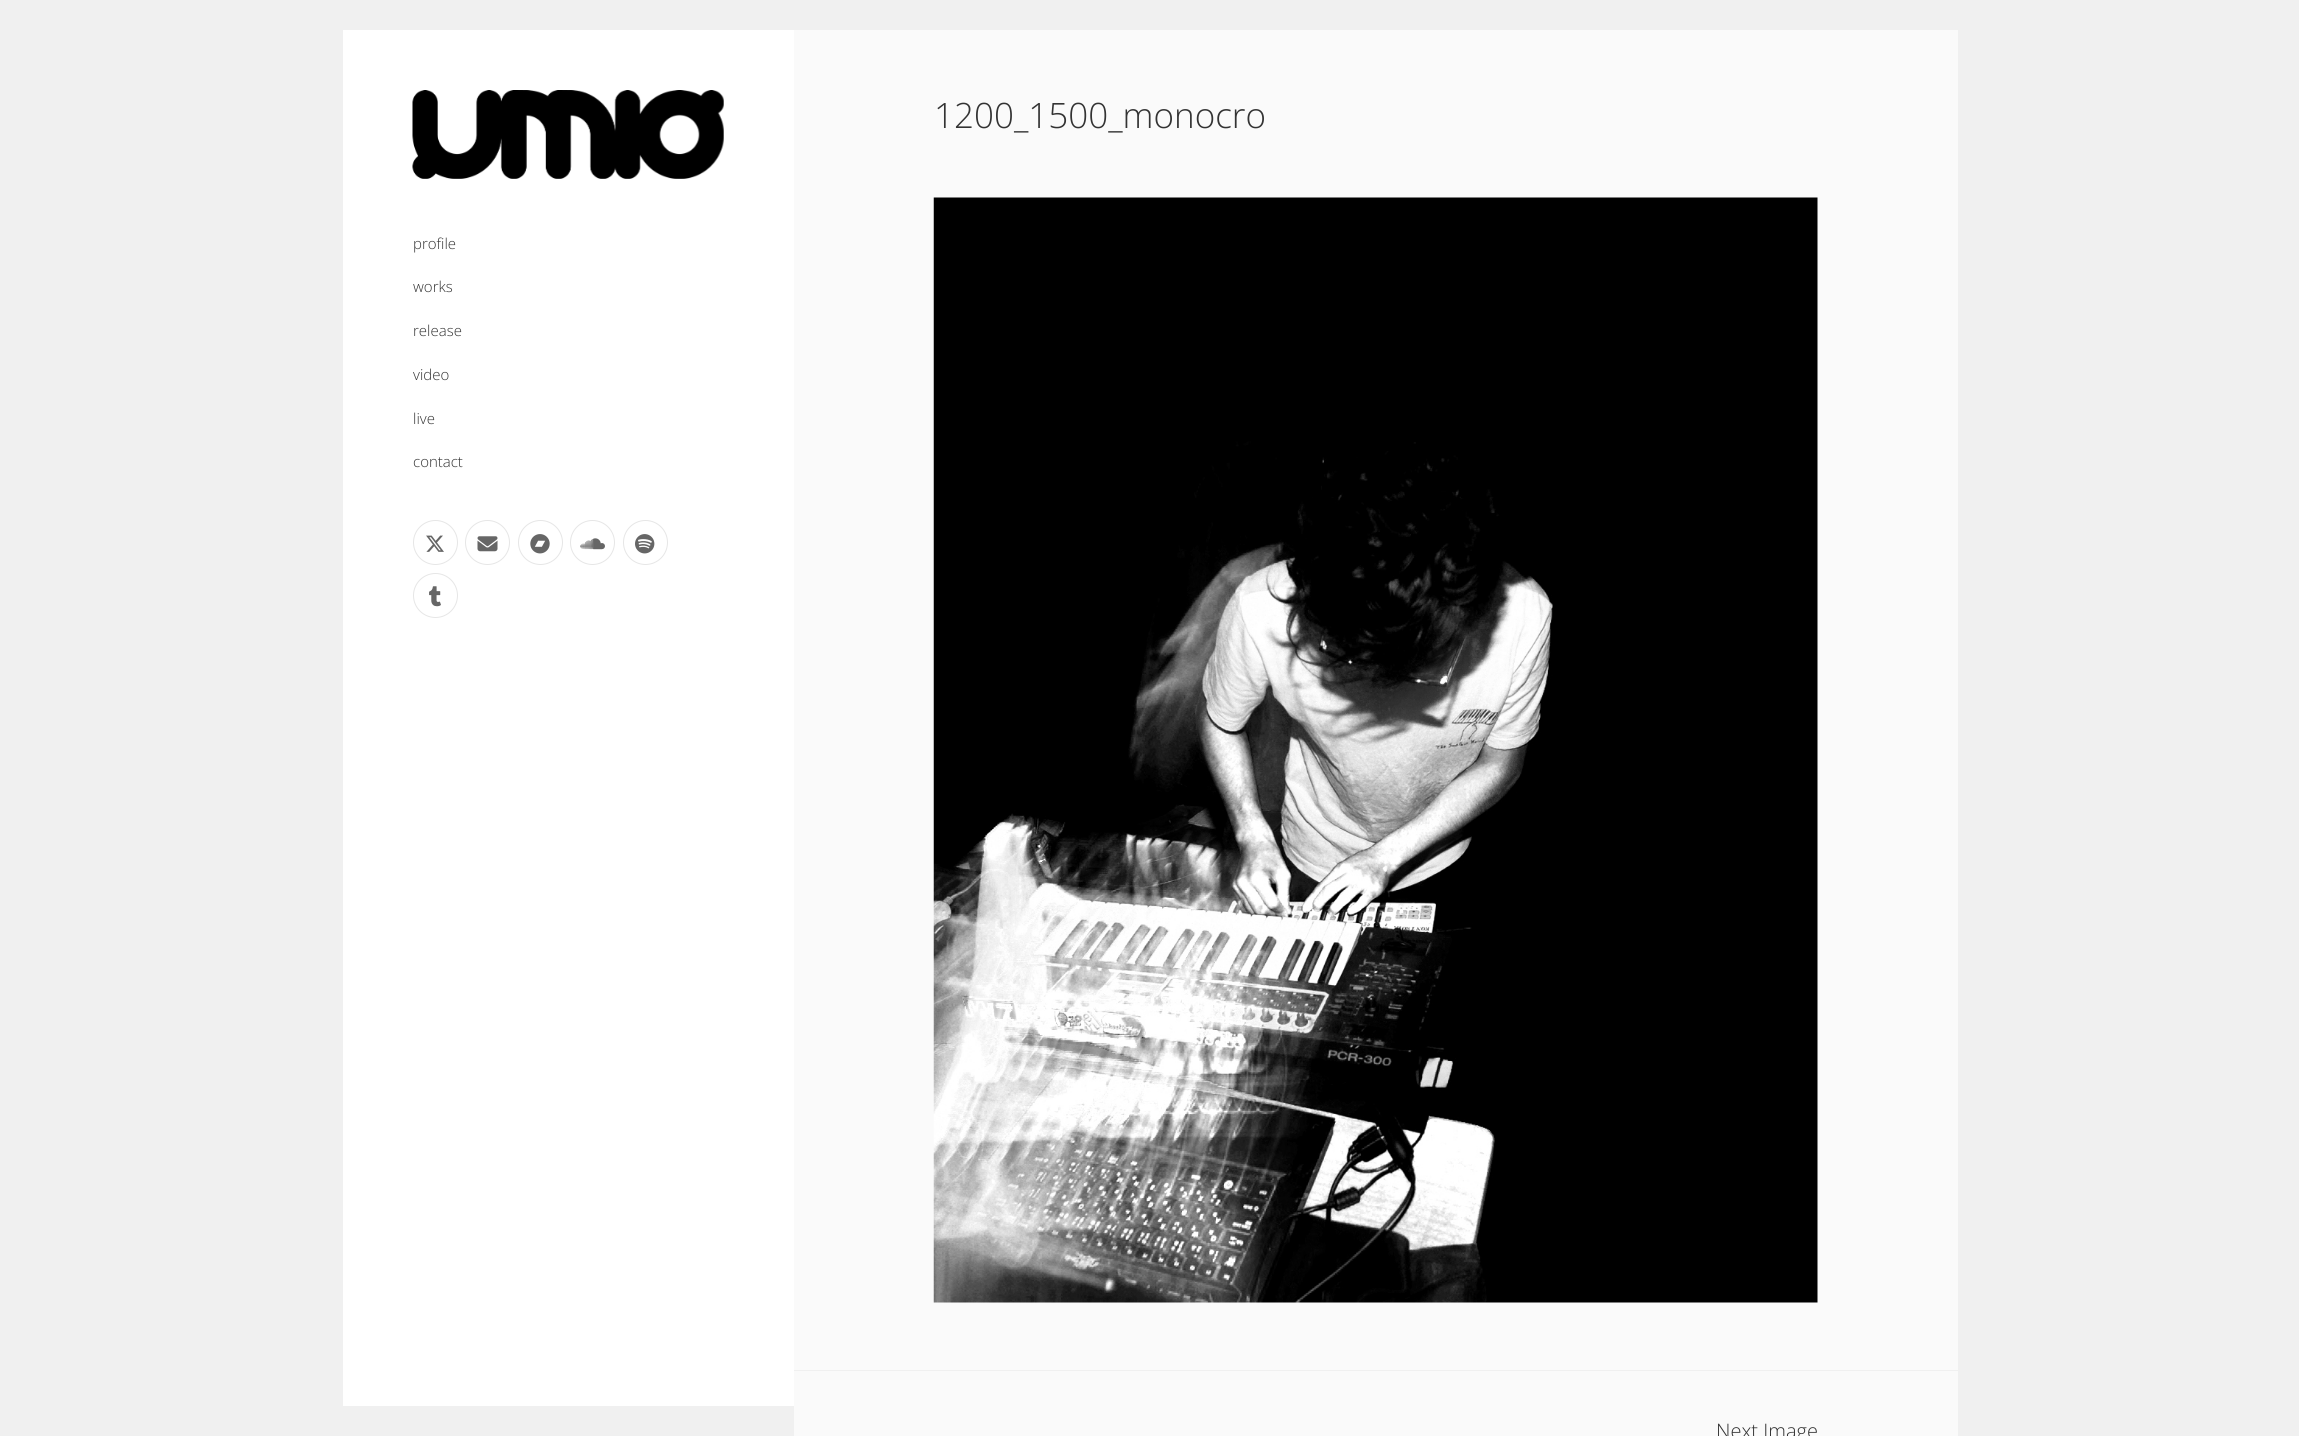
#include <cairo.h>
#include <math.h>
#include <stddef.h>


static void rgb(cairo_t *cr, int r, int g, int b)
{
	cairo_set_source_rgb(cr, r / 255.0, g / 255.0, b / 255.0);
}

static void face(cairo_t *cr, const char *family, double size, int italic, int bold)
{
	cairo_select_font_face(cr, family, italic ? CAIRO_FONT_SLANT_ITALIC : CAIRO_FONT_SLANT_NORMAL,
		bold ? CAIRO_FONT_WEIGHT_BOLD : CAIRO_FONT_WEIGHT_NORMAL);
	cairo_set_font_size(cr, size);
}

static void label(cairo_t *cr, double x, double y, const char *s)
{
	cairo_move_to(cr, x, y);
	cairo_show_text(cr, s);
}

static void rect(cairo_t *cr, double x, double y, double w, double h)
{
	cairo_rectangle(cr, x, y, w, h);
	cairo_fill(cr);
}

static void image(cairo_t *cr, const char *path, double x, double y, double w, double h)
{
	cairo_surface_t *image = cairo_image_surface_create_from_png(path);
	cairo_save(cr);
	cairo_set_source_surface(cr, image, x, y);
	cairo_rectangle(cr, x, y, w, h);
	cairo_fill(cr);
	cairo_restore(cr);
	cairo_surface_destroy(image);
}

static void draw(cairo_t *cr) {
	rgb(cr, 240, 240, 240);
	cairo_paint(cr);
	rgb(cr, 255, 255, 255);
	rect(cr, 343, 30, 451, 1376);
	image(cr, "image0.png", 412, 90, 312, 89);
	face(cr, "Open Sans Light", 15, 0, 0);
	rgb(cr, 51, 51, 51);
	label(cr, 413, 249, "profile");
	label(cr, 413, 292, "works");
	label(cr, 413, 336, "release");
	label(cr, 413, 380, "video");
	label(cr, 413, 424, "live");
	label(cr, 413, 467, "contact");
	cairo_new_path(cr);
	cairo_arc(cr, 435.5, 542.5, 22, 0, 2 * M_PI);
	rgb(cr, 230, 230, 230);
	cairo_set_line_width(cr, 1);
	cairo_stroke(cr);
	image(cr, "image1.png", 426, 535, 18, 17);
	cairo_arc(cr, 487.5, 542.5, 22, 0, 2 * M_PI);
	cairo_stroke(cr);
	image(cr, "image2.png", 477, 536, 21, 16);
	cairo_arc(cr, 540.5, 542.5, 22, 0, 2 * M_PI);
	cairo_stroke(cr);
	image(cr, "image3.png", 530, 534, 20, 20);
	cairo_arc(cr, 592.5, 542.5, 22, 0, 2 * M_PI);
	cairo_stroke(cr);
	image(cr, "image4.png", 580, 538, 25, 12);
	cairo_arc(cr, 645.5, 542.5, 22, 0, 2 * M_PI);
	cairo_stroke(cr);
	image(cr, "image5.png", 635, 534, 20, 20);
	cairo_arc(cr, 435.5, 595.5, 22, 0, 2 * M_PI);
	cairo_stroke(cr);
	image(cr, "image6.png", 429, 586, 12, 21);
	rgb(cr, 250, 250, 250);
	rect(cr, 794, 30, 1164, 1406);
	face(cr, "Open Sans Light", 35, 0, 0);
	rgb(cr, 51, 51, 51);
	label(cr, 934, 128, "1200_1500_monocro");
	image(cr, "image7.png", 933, 197, 885, 1106);
	rgb(cr, 240, 240, 240);
	rect(cr, 794, 1370, 1164, 1);
	face(cr, "Open Sans Light", 20, 0, 0);
	rgb(cr, 51, 51, 51);
	label(cr, 1716, 1438, "Next Image");
}

int main(void) {
	cairo_surface_t *surface = cairo_image_surface_create(CAIRO_FORMAT_RGB24, 2299, 1436);
	cairo_t *cr = cairo_create(surface);
	cairo_font_options_t *options = cairo_font_options_create();
	cairo_font_options_set_hint_metrics(options, CAIRO_HINT_METRICS_OFF);
	cairo_font_options_set_hint_style(options, CAIRO_HINT_STYLE_NONE);
	cairo_set_font_options(cr, options);
	cairo_set_miter_limit(cr, 4);
	draw(cr);
	cairo_surface_write_to_png(surface, "render.png");
	cairo_font_options_destroy(options);
	cairo_destroy(cr);
	cairo_surface_destroy(surface);
	return 0;
}
